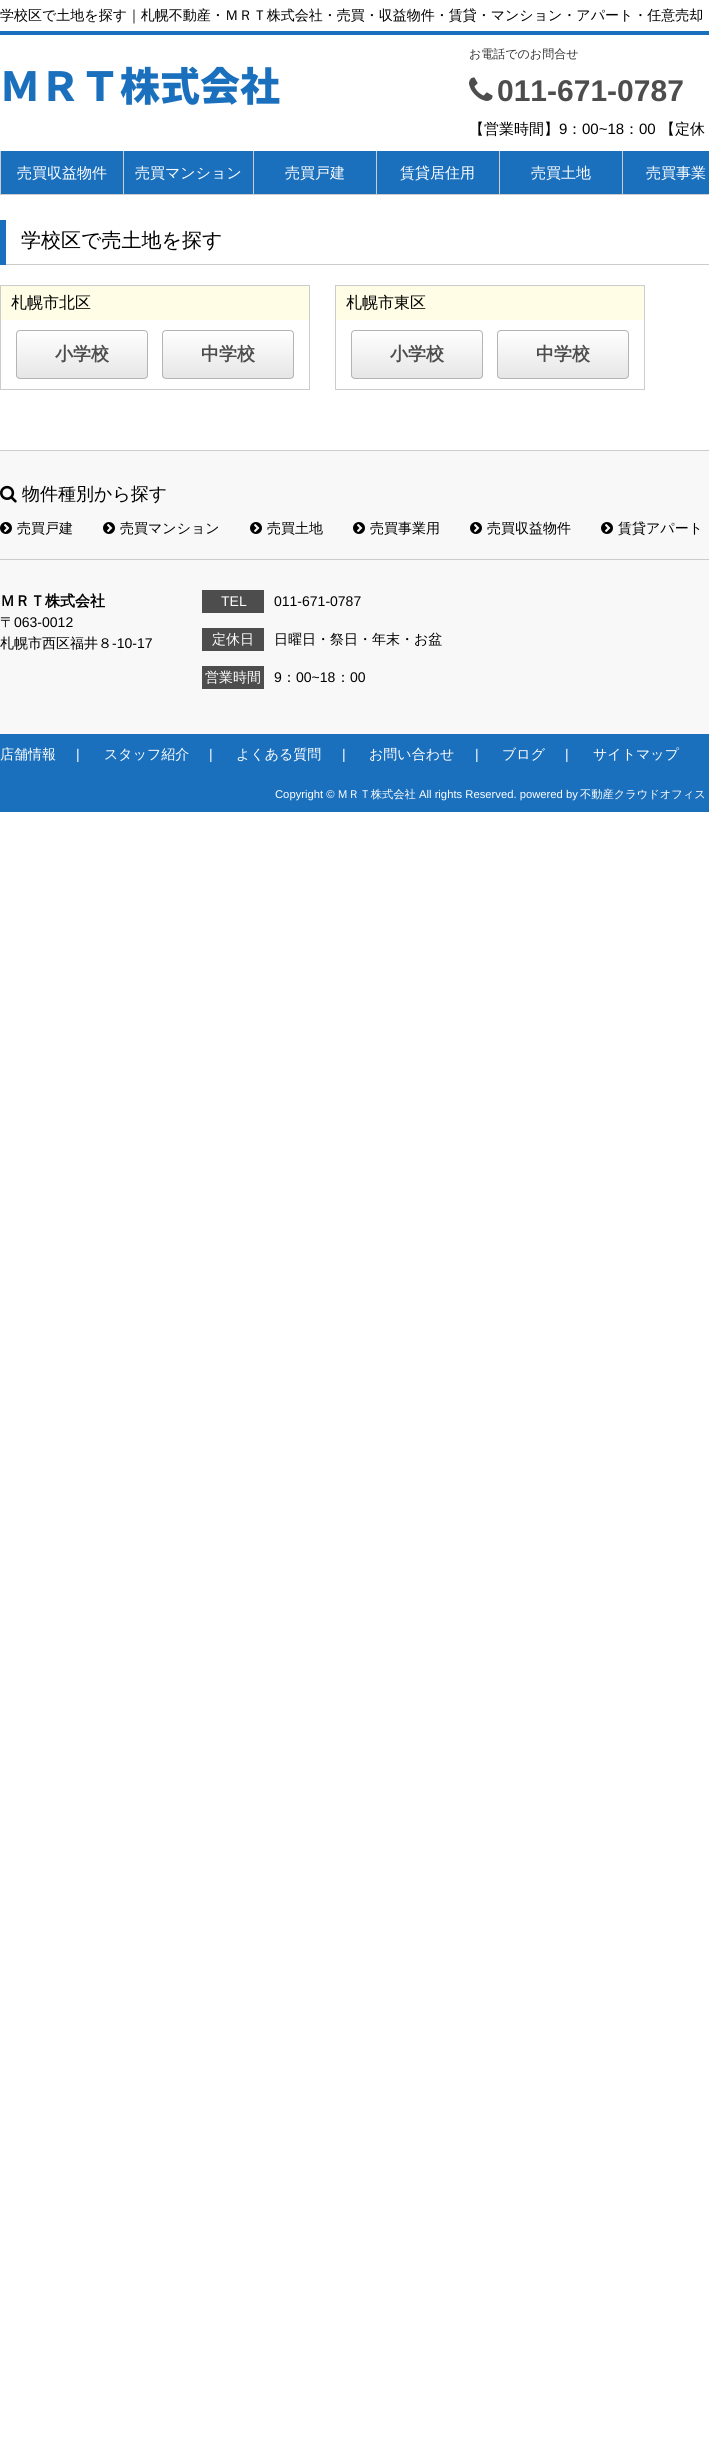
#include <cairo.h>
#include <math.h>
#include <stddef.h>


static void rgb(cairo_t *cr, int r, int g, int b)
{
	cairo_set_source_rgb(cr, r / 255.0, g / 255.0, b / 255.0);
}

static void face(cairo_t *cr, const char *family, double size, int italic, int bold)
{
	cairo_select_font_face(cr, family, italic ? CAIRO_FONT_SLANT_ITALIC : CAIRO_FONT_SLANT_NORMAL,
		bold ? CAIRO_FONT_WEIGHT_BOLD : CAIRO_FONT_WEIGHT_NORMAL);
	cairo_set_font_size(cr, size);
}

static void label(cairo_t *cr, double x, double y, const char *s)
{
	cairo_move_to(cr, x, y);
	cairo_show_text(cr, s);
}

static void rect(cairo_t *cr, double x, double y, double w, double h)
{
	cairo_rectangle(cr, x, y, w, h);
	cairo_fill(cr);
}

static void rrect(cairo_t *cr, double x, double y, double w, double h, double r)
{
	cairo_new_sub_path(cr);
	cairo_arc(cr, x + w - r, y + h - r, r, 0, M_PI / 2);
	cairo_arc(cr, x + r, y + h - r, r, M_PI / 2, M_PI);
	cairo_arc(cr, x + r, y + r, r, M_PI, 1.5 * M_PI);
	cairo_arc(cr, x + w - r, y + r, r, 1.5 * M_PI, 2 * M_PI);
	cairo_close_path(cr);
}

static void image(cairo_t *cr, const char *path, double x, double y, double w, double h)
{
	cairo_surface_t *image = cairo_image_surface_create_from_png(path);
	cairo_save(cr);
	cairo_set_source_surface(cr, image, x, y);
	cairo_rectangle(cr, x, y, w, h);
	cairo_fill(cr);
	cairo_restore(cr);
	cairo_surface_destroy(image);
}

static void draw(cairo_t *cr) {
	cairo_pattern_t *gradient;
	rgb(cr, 255, 255, 255);
	cairo_paint(cr);
	rgb(cr, 27, 112, 190);
	rect(cr, 0, 31, 709, 4);
	face(cr, "WenQuanYi Zen Hei Medium", 14, 0, 0);
	rgb(cr, 0, 0, 0);
	label(cr, 0, 20, "学校区で土地を探す｜札幌不動産・ＭＲＴ株式会社・売買・収益物件・賃貸・マンション・アパート・任意売却");
	face(cr, "Noto Sans JP Black", 40, 0, 0);
	rgb(cr, 27, 112, 190);
	label(cr, 0, 101, "ＭＲＴ株式会社");
	face(cr, "WenQuanYi Zen Hei Medium", 12, 0, 0);
	rgb(cr, 51, 51, 51);
	label(cr, 469, 58, "お電話でのお問合せ");
	image(cr, "image0.png", 469, 77, 24, 24);
	face(cr, "Liberation Sans", 30, 0, 1);
	rgb(cr, 77, 77, 77);
	label(cr, 497, 101, "011-671-0787");
	face(cr, "WenQuanYi Zen Hei Medium", 15, 0, 0);
	rgb(cr, 0, 0, 0);
	label(cr, 469, 134, "【営業時間】");
	face(cr, "Liberation Sans", 15, 0, 0);
	label(cr, 559, 134, "9");
	face(cr, "WenQuanYi Zen Hei Medium", 15, 0, 0);
	label(cr, 567, 134, "：");
	face(cr, "Liberation Sans", 15, 0, 0);
	label(cr, 582, 134, "00~18");
	face(cr, "WenQuanYi Zen Hei Medium", 15, 0, 0);
	label(cr, 624, 134, "：");
	face(cr, "Liberation Sans", 15, 0, 0);
	label(cr, 639, 134, "00");
	face(cr, "WenQuanYi Zen Hei Medium", 15, 0, 0);
	label(cr, 660, 134, "【定休");
	rgb(cr, 27, 112, 190);
	rect(cr, 1, 151, 708, 43);
	rgb(cr, 204, 204, 204);
	rect(cr, 0, 194, 709, 1);
	rect(cr, 123, 151, 1, 43);
	rect(cr, 0, 151, 1, 43);
	rgb(cr, 255, 255, 255);
	label(cr, 17, 178, "売買収益物件");
	rgb(cr, 204, 204, 204);
	rect(cr, 253, 151, 1, 43);
	rgb(cr, 255, 255, 255);
	label(cr, 135, 178, "売買マンション");
	rgb(cr, 204, 204, 204);
	rect(cr, 376, 151, 1, 43);
	rgb(cr, 255, 255, 255);
	label(cr, 285, 178, "売買戸建");
	rgb(cr, 204, 204, 204);
	rect(cr, 499, 151, 1, 43);
	rgb(cr, 255, 255, 255);
	label(cr, 400, 178, "賃貸居住用");
	rgb(cr, 204, 204, 204);
	rect(cr, 622, 151, 1, 43);
	rgb(cr, 255, 255, 255);
	label(cr, 531, 178, "売買土地");
	label(cr, 646, 178, "売買事業");
	rgb(cr, 27, 112, 190);
	rect(cr, 0, 220, 6, 45);
	face(cr, "WenQuanYi Zen Hei Medium", 20, 0, 0);
	rgb(cr, 0, 0, 0);
	label(cr, 21, 247, "学校区で売土地を探す");
	rgb(cr, 204, 204, 204);
	rect(cr, 6, 264, 703, 1);
	cairo_rectangle(cr, 0.5, 285.5, 309, 104);
	cairo_set_line_width(cr, 1);
	cairo_stroke(cr);
	rgb(cr, 255, 253, 229);
	rect(cr, 1, 286, 308, 34);
	face(cr, "WenQuanYi Zen Hei Medium", 16, 0, 0);
	rgb(cr, 0, 0, 0);
	label(cr, 11, 308, "札幌市北区");
	cairo_save(cr);
	rrect(cr, 16, 330, 132, 49, 4);
	cairo_clip(cr);
	gradient = cairo_pattern_create_linear(82, 331, 82, 378);
	cairo_pattern_add_color_stop_rgba(gradient, 0, 1, 1, 1, 1);
	cairo_pattern_add_color_stop_rgba(gradient, 1, 0.902, 0.902, 0.902, 1);
	cairo_set_source(cr, gradient);
	cairo_pattern_destroy(gradient);
	rect(cr, 16, 331, 132, 47);
	cairo_restore(cr);
	rrect(cr, 16.5, 330.5, 131, 48, 3.5);
	rgb(cr, 180, 180, 180);
	cairo_stroke(cr);
	face(cr, "WenQuanYi Zen Hei", 18, 0, 1);
	rgb(cr, 77, 77, 77);
	label(cr, 55, 360, "小学校");
	cairo_save(cr);
	rrect(cr, 162, 330, 132, 49, 4);
	cairo_clip(cr);
	gradient = cairo_pattern_create_linear(228, 331, 228, 378);
	cairo_pattern_add_color_stop_rgba(gradient, 0, 1, 1, 1, 1);
	cairo_pattern_add_color_stop_rgba(gradient, 1, 0.902, 0.902, 0.902, 1);
	cairo_set_source(cr, gradient);
	cairo_pattern_destroy(gradient);
	rect(cr, 162, 331, 132, 47);
	cairo_restore(cr);
	rrect(cr, 162.5, 330.5, 131, 48, 3.5);
	rgb(cr, 180, 180, 180);
	cairo_stroke(cr);
	rgb(cr, 77, 77, 77);
	label(cr, 201, 360, "中学校");
	cairo_rectangle(cr, 335.5, 285.5, 309, 104);
	rgb(cr, 204, 204, 204);
	cairo_stroke(cr);
	rgb(cr, 255, 253, 229);
	rect(cr, 336, 286, 308, 34);
	face(cr, "WenQuanYi Zen Hei Medium", 16, 0, 0);
	rgb(cr, 0, 0, 0);
	label(cr, 346, 308, "札幌市東区");
	cairo_save(cr);
	rrect(cr, 351, 330, 132, 49, 4);
	cairo_clip(cr);
	gradient = cairo_pattern_create_linear(417, 331, 417, 378);
	cairo_pattern_add_color_stop_rgba(gradient, 0, 1, 1, 1, 1);
	cairo_pattern_add_color_stop_rgba(gradient, 1, 0.902, 0.902, 0.902, 1);
	cairo_set_source(cr, gradient);
	cairo_pattern_destroy(gradient);
	rect(cr, 351, 331, 132, 47);
	cairo_restore(cr);
	rrect(cr, 351.5, 330.5, 131, 48, 3.5);
	rgb(cr, 180, 180, 180);
	cairo_stroke(cr);
	face(cr, "WenQuanYi Zen Hei", 18, 0, 1);
	rgb(cr, 77, 77, 77);
	label(cr, 390, 360, "小学校");
	cairo_save(cr);
	rrect(cr, 497, 330, 132, 49, 4);
	cairo_clip(cr);
	gradient = cairo_pattern_create_linear(563, 331, 563, 378);
	cairo_pattern_add_color_stop_rgba(gradient, 0, 1, 1, 1, 1);
	cairo_pattern_add_color_stop_rgba(gradient, 1, 0.902, 0.902, 0.902, 1);
	cairo_set_source(cr, gradient);
	cairo_pattern_destroy(gradient);
	rect(cr, 497, 331, 132, 47);
	cairo_restore(cr);
	rrect(cr, 497.5, 330.5, 131, 48, 3.5);
	rgb(cr, 180, 180, 180);
	cairo_stroke(cr);
	rgb(cr, 77, 77, 77);
	label(cr, 536, 360, "中学校");
	rgb(cr, 248, 248, 248);
	rect(cr, 0, 451, 709, 283);
	rgb(cr, 204, 204, 204);
	rect(cr, 0, 450, 709, 1);
	rect(cr, 0, 559, 709, 1);
	image(cr, "image1.png", 0, 485, 17, 18);
	face(cr, "WenQuanYi Zen Hei Medium", 18, 0, 0);
	rgb(cr, 0, 0, 0);
	label(cr, 22, 500, "物件種別から探す");
	image(cr, "image2.png", 0, 522, 12, 12);
	face(cr, "WenQuanYi Zen Hei Medium", 14, 0, 0);
	label(cr, 17, 533, "売買戸建");
	image(cr, "image2.png", 103, 522, 12, 12);
	label(cr, 120, 533, "売買マンション");
	image(cr, "image2.png", 250, 522, 12, 12);
	label(cr, 267, 533, "売買土地");
	image(cr, "image2.png", 353, 522, 12, 12);
	label(cr, 370, 533, "売買事業用");
	image(cr, "image2.png", 470, 522, 12, 12);
	label(cr, 487, 533, "売買収益物件");
	image(cr, "image2.png", 601, 522, 12, 12);
	label(cr, 618, 533, "賃貸アパート");
	face(cr, "WenQuanYi Zen Hei", 15, 0, 1);
	label(cr, 0, 606, "ＭＲＴ株式会社");
	face(cr, "WenQuanYi Zen Hei Medium", 14, 0, 0);
	label(cr, 0, 627, "〒");
	face(cr, "Liberation Sans", 14, 0, 0);
	label(cr, 14, 627, "063-0012");
	face(cr, "WenQuanYi Zen Hei Medium", 14, 0, 0);
	label(cr, 0, 648, "札幌市西区福井８");
	face(cr, "Liberation Sans", 14, 0, 0);
	label(cr, 112, 648, "‐10‐17");
	rgb(cr, 77, 77, 77);
	rect(cr, 202, 590, 62, 23);
	rgb(cr, 255, 255, 255);
	label(cr, 221, 606, "TEL");
	rgb(cr, 0, 0, 0);
	label(cr, 274, 606, "011-671-0787");
	rgb(cr, 77, 77, 77);
	rect(cr, 202, 628, 62, 23);
	face(cr, "WenQuanYi Zen Hei Medium", 14, 0, 0);
	rgb(cr, 255, 255, 255);
	label(cr, 212, 644, "定休日");
	rgb(cr, 0, 0, 0);
	label(cr, 274, 644, "日曜日・祭日・年末・お盆");
	rgb(cr, 77, 77, 77);
	rect(cr, 202, 666, 62, 23);
	rgb(cr, 255, 255, 255);
	label(cr, 205, 682, "営業時間");
	face(cr, "Liberation Sans", 14, 0, 0);
	rgb(cr, 0, 0, 0);
	label(cr, 274, 682, "9");
	face(cr, "WenQuanYi Zen Hei Medium", 14, 0, 0);
	label(cr, 282, 682, "：");
	face(cr, "Liberation Sans", 14, 0, 0);
	label(cr, 296, 682, "00~18");
	face(cr, "WenQuanYi Zen Hei Medium", 14, 0, 0);
	label(cr, 336, 682, "：");
	face(cr, "Liberation Sans", 14, 0, 0);
	label(cr, 350, 682, "00");
	rgb(cr, 27, 112, 190);
	rect(cr, 0, 734, 709, 78);
	face(cr, "WenQuanYi Zen Hei Medium", 14, 0, 0);
	rgb(cr, 255, 255, 255);
	label(cr, 0, 759, "店舗情報");
	face(cr, "Liberation Sans", 14, 0, 0);
	label(cr, 76, 759, "|");
	face(cr, "WenQuanYi Zen Hei Medium", 14, 0, 0);
	label(cr, 104, 759, "スタッフ紹介");
	face(cr, "Liberation Sans", 14, 0, 0);
	label(cr, 209, 759, "|");
	face(cr, "WenQuanYi Zen Hei Medium", 14, 0, 0);
	label(cr, 236, 759, "よくある質問");
	face(cr, "Liberation Sans", 14, 0, 0);
	label(cr, 342, 759, "|");
	face(cr, "WenQuanYi Zen Hei Medium", 14, 0, 0);
	label(cr, 369, 759, "お問い合わせ");
	face(cr, "Liberation Sans", 14, 0, 0);
	label(cr, 475, 759, "|");
	face(cr, "WenQuanYi Zen Hei Medium", 14, 0, 0);
	label(cr, 502, 759, "ブログ");
	face(cr, "Liberation Sans", 14, 0, 0);
	label(cr, 565, 759, "|");
	face(cr, "WenQuanYi Zen Hei Medium", 14, 0, 0);
	label(cr, 593, 759, "サイトマップ");
	face(cr, "Liberation Sans", 11.25, 0, 0);
	label(cr, 275, 798, "Copyright ©");
	face(cr, "WenQuanYi Zen Hei Medium", 11.25, 0, 0);
	label(cr, 337, 798, "ＭＲＴ株式会社");
	face(cr, "Liberation Sans", 11.25, 0, 0);
	label(cr, 419, 798, "All rights Reserved. powered by");
	face(cr, "WenQuanYi Zen Hei Medium", 11.25, 0, 0);
	label(cr, 580, 798, "不動産クラウドオフィス");
}

int main(void) {
	cairo_surface_t *surface = cairo_image_surface_create(CAIRO_FORMAT_RGB24, 709, 2456);
	cairo_t *cr = cairo_create(surface);
	cairo_font_options_t *options = cairo_font_options_create();
	cairo_font_options_set_hint_metrics(options, CAIRO_HINT_METRICS_OFF);
	cairo_font_options_set_hint_style(options, CAIRO_HINT_STYLE_NONE);
	cairo_set_font_options(cr, options);
	cairo_set_miter_limit(cr, 4);
	draw(cr);
	cairo_surface_write_to_png(surface, "render.png");
	cairo_font_options_destroy(options);
	cairo_destroy(cr);
	cairo_surface_destroy(surface);
	return 0;
}
